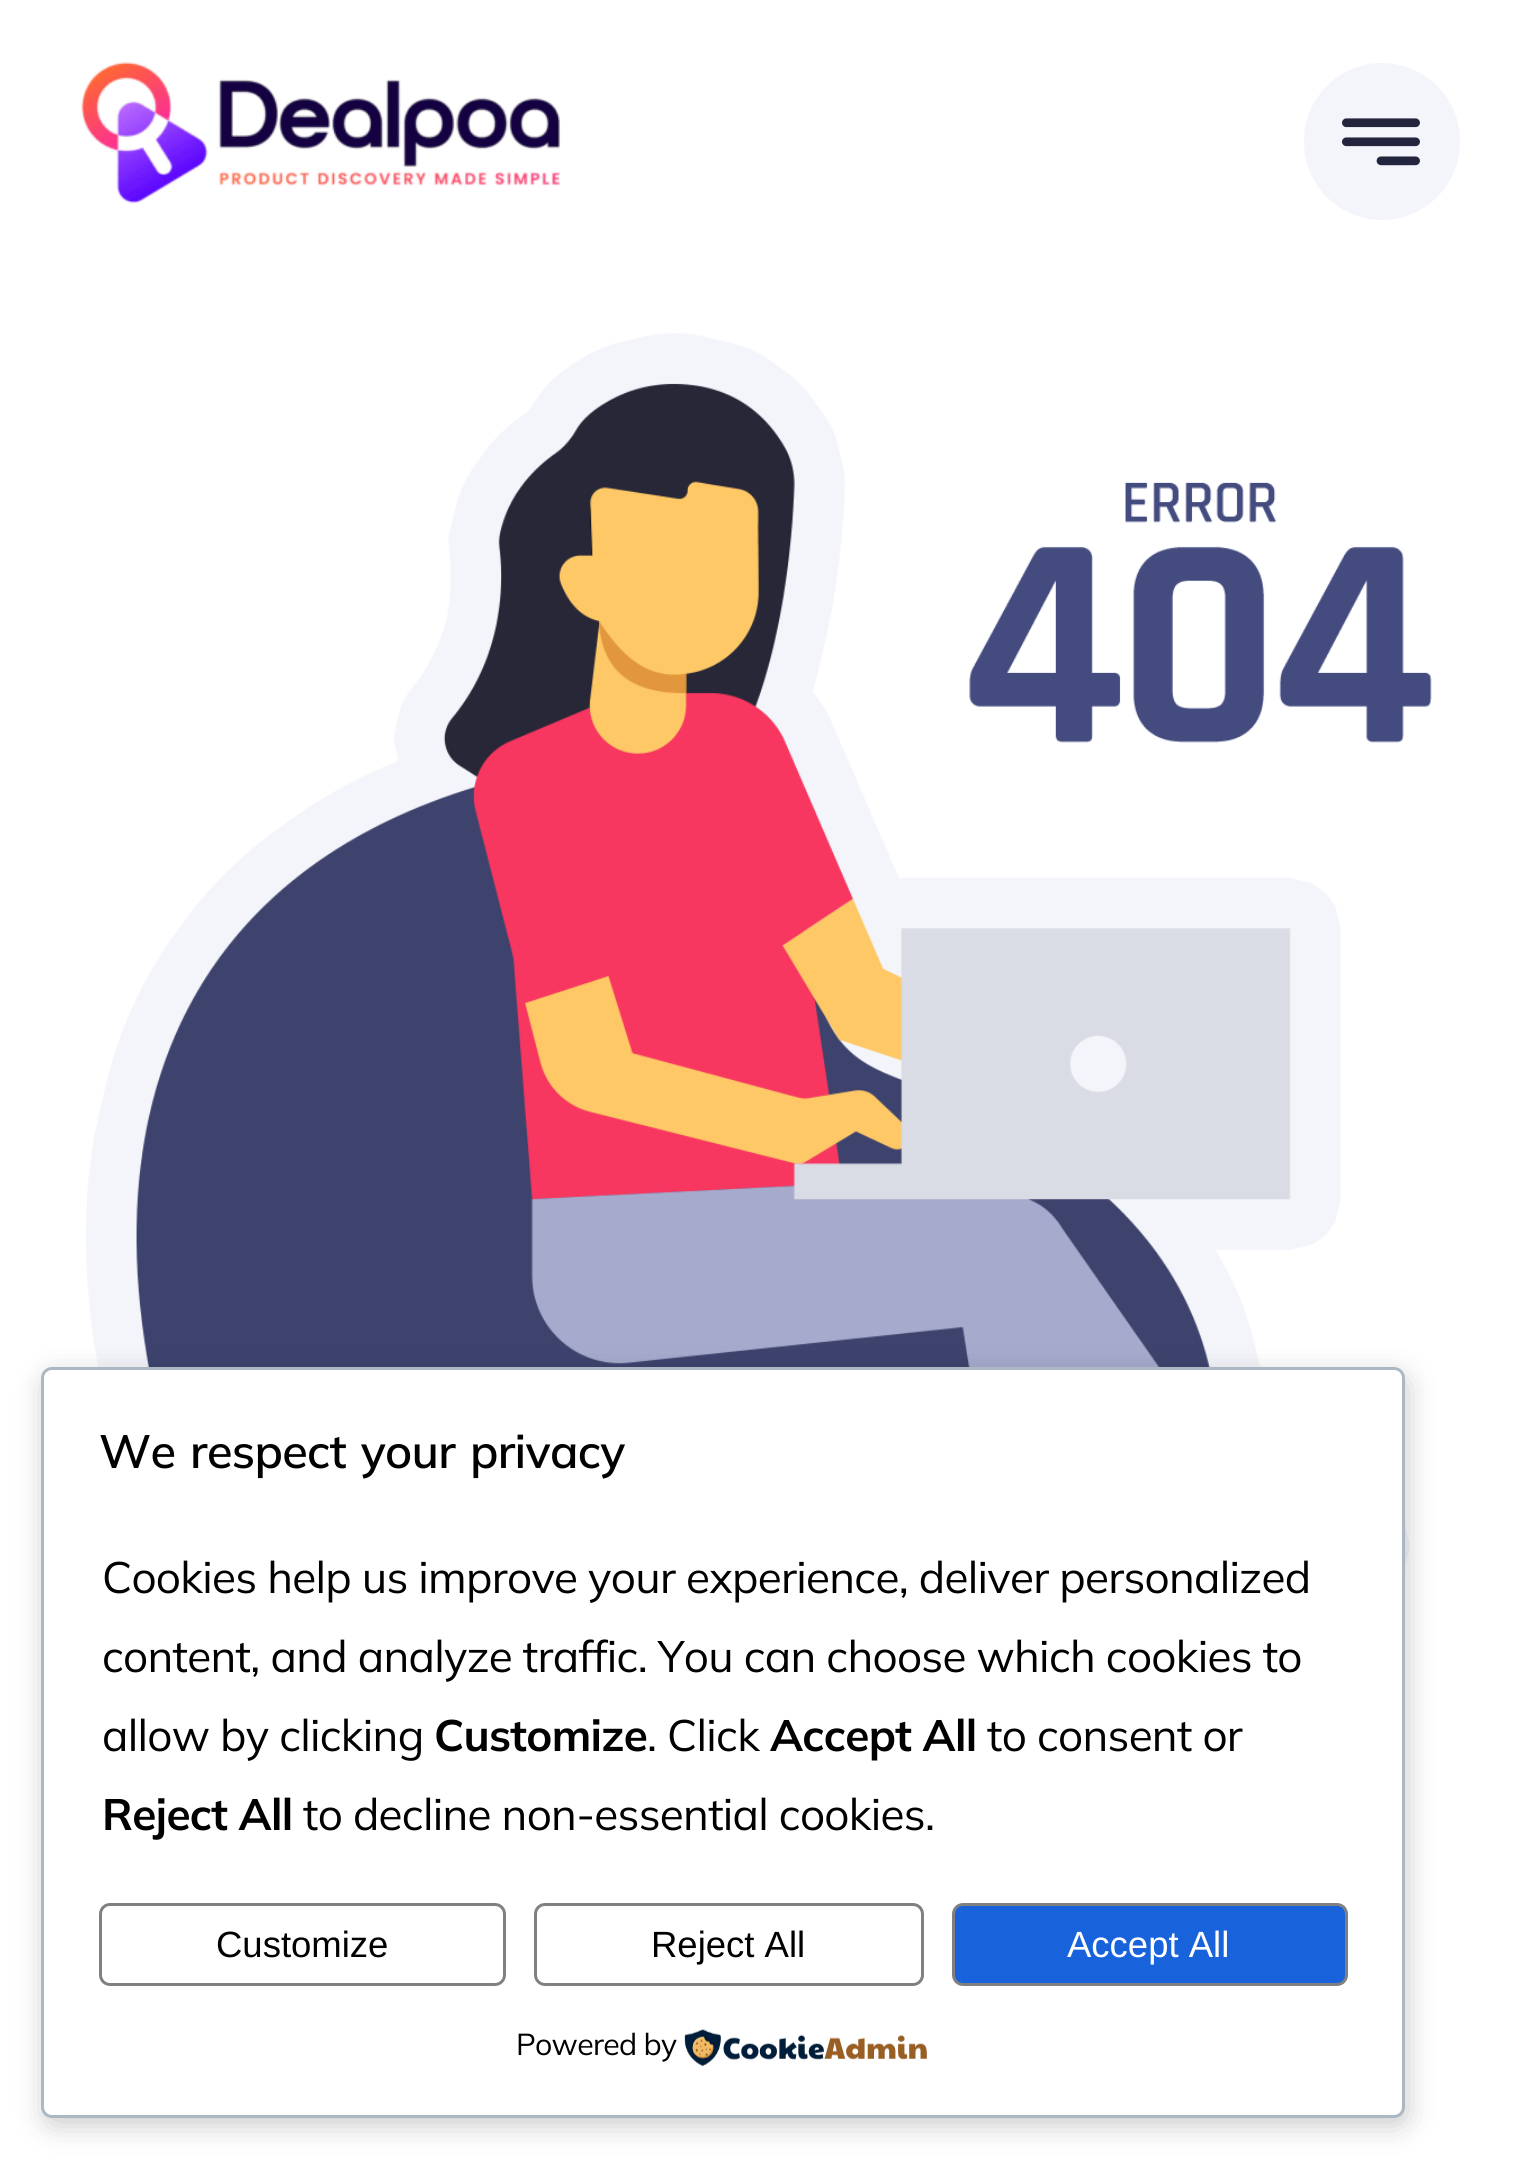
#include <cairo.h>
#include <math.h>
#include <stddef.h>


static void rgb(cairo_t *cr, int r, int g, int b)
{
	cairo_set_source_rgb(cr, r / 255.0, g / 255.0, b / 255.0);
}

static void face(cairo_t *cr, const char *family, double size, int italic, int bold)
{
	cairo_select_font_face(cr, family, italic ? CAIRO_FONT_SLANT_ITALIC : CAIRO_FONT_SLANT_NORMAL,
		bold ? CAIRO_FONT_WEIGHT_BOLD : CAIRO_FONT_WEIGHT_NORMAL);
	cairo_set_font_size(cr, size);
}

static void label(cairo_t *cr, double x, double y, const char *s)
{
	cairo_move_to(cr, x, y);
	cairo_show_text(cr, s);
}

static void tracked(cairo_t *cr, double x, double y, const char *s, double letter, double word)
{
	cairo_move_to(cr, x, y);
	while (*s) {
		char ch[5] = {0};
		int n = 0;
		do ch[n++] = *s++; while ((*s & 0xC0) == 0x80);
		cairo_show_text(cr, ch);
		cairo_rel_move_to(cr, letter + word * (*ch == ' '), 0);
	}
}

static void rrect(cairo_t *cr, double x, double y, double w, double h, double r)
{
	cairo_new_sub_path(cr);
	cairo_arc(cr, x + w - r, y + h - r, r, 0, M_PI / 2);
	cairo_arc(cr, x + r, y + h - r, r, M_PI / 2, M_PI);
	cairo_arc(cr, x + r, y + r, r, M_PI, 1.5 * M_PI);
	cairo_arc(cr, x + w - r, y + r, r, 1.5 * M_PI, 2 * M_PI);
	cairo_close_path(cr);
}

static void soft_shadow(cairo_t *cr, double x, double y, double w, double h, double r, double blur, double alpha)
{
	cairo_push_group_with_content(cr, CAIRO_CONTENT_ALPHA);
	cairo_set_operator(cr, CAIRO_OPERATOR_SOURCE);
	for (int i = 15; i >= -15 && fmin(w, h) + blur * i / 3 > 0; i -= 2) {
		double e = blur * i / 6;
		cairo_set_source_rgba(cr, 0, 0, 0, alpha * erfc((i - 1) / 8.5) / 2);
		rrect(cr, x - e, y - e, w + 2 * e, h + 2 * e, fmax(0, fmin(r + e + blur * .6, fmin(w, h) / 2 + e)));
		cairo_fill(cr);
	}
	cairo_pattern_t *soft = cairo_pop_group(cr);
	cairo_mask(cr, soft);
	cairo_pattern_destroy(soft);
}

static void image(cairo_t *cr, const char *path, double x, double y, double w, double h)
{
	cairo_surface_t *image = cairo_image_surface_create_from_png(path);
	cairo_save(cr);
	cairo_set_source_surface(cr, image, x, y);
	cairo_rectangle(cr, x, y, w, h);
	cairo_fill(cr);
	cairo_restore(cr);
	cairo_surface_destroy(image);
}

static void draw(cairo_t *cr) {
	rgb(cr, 255, 255, 255);
	cairo_paint(cr);
	image(cr, "image0.png", 81, 62, 480, 142);
	rgb(cr, 244, 245, 250);
	rrect(cr, 1304, 63, 156, 157, 78);
	cairo_fill(cr);
	image(cr, "image1.png", 1342, 118, 78, 48);
	image(cr, "image2.png", 86, 333, 1346, 1236);
	rgb(cr, 0, 0, 0);
	soft_shadow(cr, 44, 1375, 1364, 751, 11, 14, 0.2);
	rgb(cr, 255, 255, 255);
	rrect(cr, 42.5, 1368.5, 1361, 748, 9.5);
	cairo_fill_preserve(cr);
	rgb(cr, 171, 184, 195);
	cairo_set_line_width(cr, 3);
	cairo_stroke(cr);
	face(cr, "Mulish SemiBold", 46.75, 0, 0);
	rgb(cr, 0, 0, 0);
	tracked(cr, 99, 1468, "We respect your privacy", -0.7, 3);
	face(cr, "Mulish", 44, 0, 0);
	tracked(cr, 102, 1593, "Cookies help us improve your experience, deliver personalized", -0.7, 0);
	tracked(cr, 102, 1672, "content, and analyze traffic. You can choose which cookies to", -0.7, 0);
	tracked(cr, 102, 1751, "allow by clicking", -0.7, 0);
	face(cr, "Mulish", 44, 0, 1);
	tracked(cr, 434, 1751, "Customize", -0.7, 0);
	face(cr, "Mulish", 44, 0, 0);
	tracked(cr, 647, 1751, ". Click", -0.7, 0);
	face(cr, "Mulish", 44, 0, 1);
	tracked(cr, 770, 1751, "Accept All", -0.7, 0);
	face(cr, "Mulish", 44, 0, 0);
	tracked(cr, 987, 1751, "to consent or", -0.7, 0);
	face(cr, "Mulish", 44, 0, 1);
	tracked(cr, 102, 1830, "Reject All", -0.7, 0);
	face(cr, "Mulish", 44, 0, 0);
	tracked(cr, 303, 1830, "to decline non-essential cookies.", -0.7, 0);
	rrect(cr, 100.5, 1904.5, 404, 80, 9.5);
	rgb(cr, 128, 128, 128);
	cairo_stroke(cr);
	face(cr, "Liberation Sans", 36.5, 0, 0);
	rgb(cr, 0, 0, 0);
	label(cr, 216, 1957, "Customize");
	rrect(cr, 535.5, 1904.5, 387, 80, 9.5);
	rgb(cr, 128, 128, 128);
	cairo_stroke(cr);
	rgb(cr, 0, 0, 0);
	label(cr, 651, 1957, "Reject All");
	rgb(cr, 24, 99, 220);
	rrect(cr, 953.5, 1904.5, 393, 80, 9.5);
	cairo_fill_preserve(cr);
	rgb(cr, 128, 128, 128);
	cairo_stroke(cr);
	rgb(cr, 255, 255, 255);
	label(cr, 1067, 1957, "Accept All");
	face(cr, "Mulish", 30.25, 0, 0);
	rgb(cr, 0, 0, 0);
	tracked(cr, 516, 2055, "Powered by", -0.7, 0);
	image(cr, "image3.png", 684, 2029, 243, 37);
}

int main(void) {
	cairo_surface_t *surface = cairo_image_surface_create(CAIRO_FORMAT_RGB24, 1515, 2171);
	cairo_t *cr = cairo_create(surface);
	cairo_font_options_t *options = cairo_font_options_create();
	cairo_font_options_set_hint_metrics(options, CAIRO_HINT_METRICS_OFF);
	cairo_font_options_set_hint_style(options, CAIRO_HINT_STYLE_NONE);
	cairo_set_font_options(cr, options);
	cairo_set_miter_limit(cr, 4);
	draw(cr);
	cairo_surface_write_to_png(surface, "render.png");
	cairo_font_options_destroy(options);
	cairo_destroy(cr);
	cairo_surface_destroy(surface);
	return 0;
}
